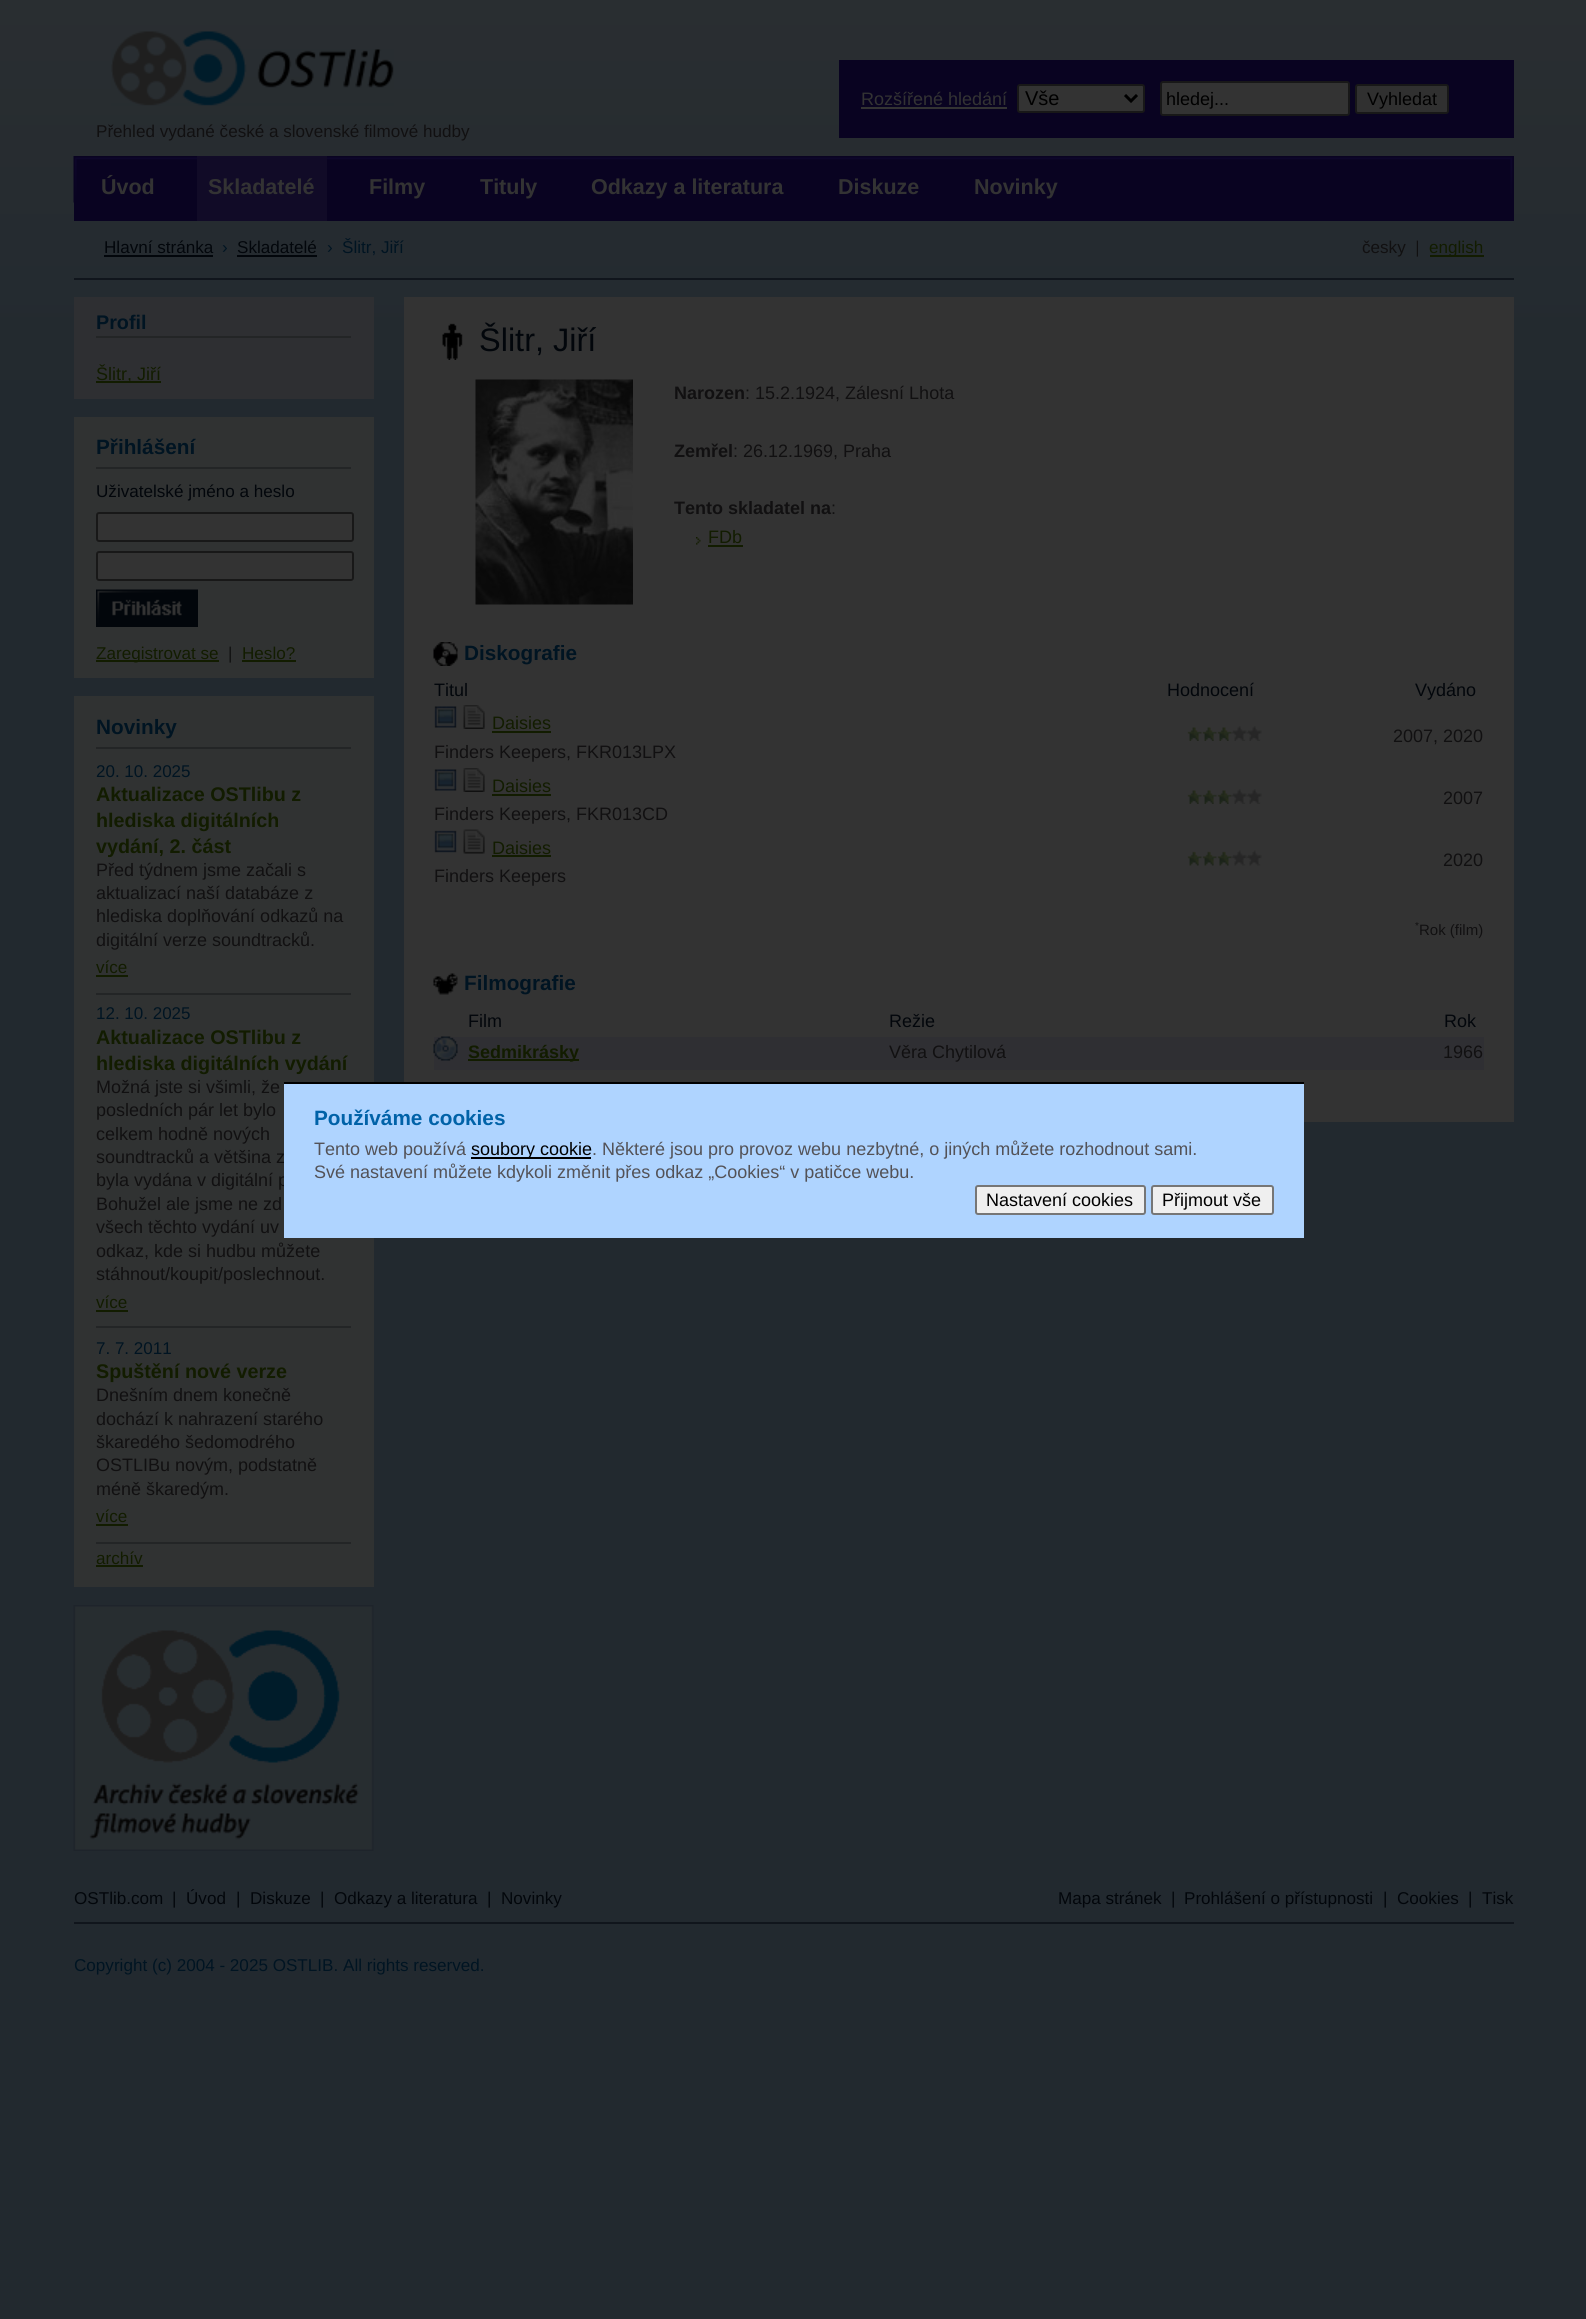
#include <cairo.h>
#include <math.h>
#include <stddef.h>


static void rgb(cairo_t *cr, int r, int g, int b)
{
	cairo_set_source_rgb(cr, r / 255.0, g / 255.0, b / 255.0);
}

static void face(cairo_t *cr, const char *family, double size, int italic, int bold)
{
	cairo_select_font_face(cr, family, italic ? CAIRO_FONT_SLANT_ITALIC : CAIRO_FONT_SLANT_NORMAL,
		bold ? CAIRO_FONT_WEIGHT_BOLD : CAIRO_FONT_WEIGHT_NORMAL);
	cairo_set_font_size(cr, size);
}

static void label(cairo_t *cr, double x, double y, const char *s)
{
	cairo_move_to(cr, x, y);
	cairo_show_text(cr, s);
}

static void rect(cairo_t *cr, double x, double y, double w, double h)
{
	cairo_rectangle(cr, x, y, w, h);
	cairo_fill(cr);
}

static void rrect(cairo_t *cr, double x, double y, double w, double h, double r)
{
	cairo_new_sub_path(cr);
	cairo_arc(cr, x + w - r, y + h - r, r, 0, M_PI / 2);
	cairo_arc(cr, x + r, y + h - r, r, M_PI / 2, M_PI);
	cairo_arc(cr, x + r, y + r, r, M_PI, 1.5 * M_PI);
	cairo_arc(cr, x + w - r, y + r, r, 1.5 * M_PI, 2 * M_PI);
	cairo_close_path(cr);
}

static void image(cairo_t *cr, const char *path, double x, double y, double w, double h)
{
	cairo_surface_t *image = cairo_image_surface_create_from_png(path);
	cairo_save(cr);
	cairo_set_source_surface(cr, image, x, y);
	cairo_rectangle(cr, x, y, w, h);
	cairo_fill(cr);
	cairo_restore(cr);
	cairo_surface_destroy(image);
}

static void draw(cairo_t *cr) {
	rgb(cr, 34, 41, 47);
	cairo_paint(cr);
	image(cr, "image0.png", 0, 0, 1586, 380);
	rgb(cr, 9, 3, 33);
	rect(cr, 839, 60, 675, 78);
	face(cr, "Liberation Sans", 18, 0, 0);
	rgb(cr, 51, 51, 51);
	label(cr, 861, 105, "Rozšířené hledání");
	rect(cr, 861, 107, 146, 2);
	rrect(cr, 1018, 85, 126, 27, 2);
	cairo_fill_preserve(cr);
	rgb(cr, 24, 24, 24);
	cairo_stroke(cr);
	cairo_new_path(cr);
	cairo_move_to(cr, 1125, 95);
	cairo_line_to(cr, 1131, 101);
	cairo_line_to(cr, 1137, 95);
	rgb(cr, 0, 0, 0);
	cairo_set_line_width(cr, 3);
	cairo_stroke(cr);
	face(cr, "Liberation Sans", 20, 0, 0);
	label(cr, 1025, 105, "Vše");
	rgb(cr, 51, 51, 51);
	rrect(cr, 1161, 82, 188, 33, 2);
	cairo_fill_preserve(cr);
	rgb(cr, 24, 24, 24);
	cairo_set_line_width(cr, 2);
	cairo_stroke(cr);
	face(cr, "Liberation Sans", 18, 0, 0);
	rgb(cr, 0, 0, 0);
	label(cr, 1166, 105, "hledej...");
	rgb(cr, 48, 48, 48);
	rrect(cr, 1356, 85, 92, 28, 2);
	cairo_fill_preserve(cr);
	rgb(cr, 24, 24, 24);
	cairo_stroke(cr);
	rgb(cr, 0, 0, 0);
	label(cr, 1367, 105, "Vyhledat");
	rgb(cr, 9, 3, 33);
	rect(cr, 74, 156, 1440, 65);
	image(cr, "image1.png", 73, 156, 1440, 47);
	face(cr, "Liberation Sans", 21.5, 0, 1);
	rgb(cr, 51, 51, 51);
	label(cr, 101, 194, "Úvod");
	rgb(cr, 17, 11, 39);
	rect(cr, 197, 156, 130, 65);
	rgb(cr, 51, 51, 51);
	label(cr, 208, 194, "Skladatelé");
	label(cr, 369, 194, "Filmy");
	label(cr, 480, 194, "Tituly");
	label(cr, 591, 194, "Odkazy a literatura");
	label(cr, 838, 194, "Diskuze");
	label(cr, 974, 194, "Novinky");
	face(cr, "Liberation Sans", 17.1, 0, 0);
	rgb(cr, 2, 6, 11);
	label(cr, 104, 253, "Hlavní stránka");
	rect(cr, 104, 255, 109, 2);
	rgb(cr, 0, 20, 34);
	label(cr, 222, 253, "›");
	rgb(cr, 2, 6, 11);
	label(cr, 237, 253, "Skladatelé");
	rect(cr, 237, 255, 80, 2);
	rgb(cr, 0, 20, 34);
	label(cr, 327, 253, "›");
	label(cr, 342, 253, "Šlitr, Jiří");
	rgb(cr, 46, 47, 50);
	rect(cr, 74, 297, 300, 102);
	rgb(cr, 35, 37, 38);
	rect(cr, 96, 336, 255, 2);
	face(cr, "Liberation Sans", 19.75, 0, 1);
	rgb(cr, 0, 20, 34);
	label(cr, 96, 329, "Profil");
	rgb(cr, 18, 28, 0);
	rect(cr, 96, 381, 65, 2);
	face(cr, "Liberation Sans", 18, 0, 0);
	label(cr, 96, 380, "Šlitr, Jiří");
	rgb(cr, 48, 50, 50);
	rect(cr, 74, 417, 300, 261);
	rgb(cr, 35, 37, 38);
	rect(cr, 96, 467, 255, 2);
	face(cr, "Liberation Sans", 20.75, 0, 1);
	rgb(cr, 0, 20, 34);
	label(cr, 96, 454, "Přihlášení");
	face(cr, "Liberation Sans", 17.1, 0, 0);
	rgb(cr, 2, 6, 11);
	label(cr, 96, 497, "Uživatelské jméno a heslo");
	rgb(cr, 51, 51, 51);
	rrect(cr, 97, 513, 256, 28, 2);
	cairo_fill_preserve(cr);
	rgb(cr, 24, 24, 24);
	cairo_stroke(cr);
	rgb(cr, 51, 51, 51);
	rrect(cr, 97, 552, 256, 28, 2);
	cairo_fill_preserve(cr);
	rgb(cr, 24, 24, 24);
	cairo_stroke(cr);
	image(cr, "image2.png", 96, 589, 102, 38);
	rgb(cr, 18, 28, 0);
	rect(cr, 96, 660, 123, 2);
	label(cr, 96, 659, "Zaregistrovat se");
	rgb(cr, 17, 16, 17);
	label(cr, 228, 659, "|");
	rgb(cr, 18, 28, 0);
	label(cr, 242, 659, "Heslo?");
	rect(cr, 242, 660, 54, 2);
	rgb(cr, 48, 50, 50);
	rect(cr, 74, 696, 300, 891);
	rgb(cr, 35, 37, 38);
	rect(cr, 96, 747, 255, 2);
	face(cr, "Liberation Sans", 20.75, 0, 1);
	rgb(cr, 0, 20, 34);
	label(cr, 96, 734, "Novinky");
	rgb(cr, 35, 37, 38);
	rect(cr, 96, 993, 255, 2);
	face(cr, "Liberation Sans", 17, 0, 0);
	rgb(cr, 0, 20, 34);
	label(cr, 96, 777, "20. 10. 2025");
	face(cr, "Liberation Sans", 19.75, 0, 1);
	rgb(cr, 18, 28, 0);
	label(cr, 96, 801, "Aktualizace OSTlibu z");
	label(cr, 96, 827, "hlediska digitálních");
	label(cr, 96, 853, "vydání, 2. část");
	face(cr, "Liberation Sans", 18, 0, 0);
	rgb(cr, 17, 16, 17);
	label(cr, 96, 876, "Před týdnem jsme začali s");
	label(cr, 96, 899, "aktualizací naší databáze z");
	label(cr, 96, 922, "hlediska doplňování odkazů na");
	label(cr, 96, 946, "digitální verze soundtracků.");
	face(cr, "Liberation Sans", 17.1, 0, 0);
	rgb(cr, 18, 28, 0);
	label(cr, 96, 973, "více");
	rect(cr, 96, 975, 32, 2);
	rgb(cr, 35, 37, 38);
	rect(cr, 96, 1326, 255, 2);
	face(cr, "Liberation Sans", 17, 0, 0);
	rgb(cr, 0, 20, 34);
	label(cr, 96, 1019, "12. 10. 2025");
	face(cr, "Liberation Sans", 19.75, 0, 1);
	rgb(cr, 18, 28, 0);
	label(cr, 96, 1044, "Aktualizace OSTlibu z");
	label(cr, 96, 1070, "hlediska digitálních vydání");
	face(cr, "Liberation Sans", 18, 0, 0);
	rgb(cr, 17, 16, 17);
	label(cr, 96, 1093, "Možná jste si všimli, že");
	label(cr, 96, 1116, "posledních pár let bylo");
	label(cr, 96, 1140, "celkem hodně nových");
	label(cr, 96, 1163, "soundtracků a většina z");
	label(cr, 96, 1186, "byla vydána v digitální p");
	label(cr, 96, 1210, "Bohužel ale jsme ne zd");
	label(cr, 96, 1233, "všech těchto vydání uv");
	label(cr, 96, 1257, "odkaz, kde si hudbu můžete");
	label(cr, 96, 1280, "stáhnout/koupit/poslechnout.");
	face(cr, "Liberation Sans", 17.1, 0, 0);
	rgb(cr, 18, 28, 0);
	label(cr, 96, 1308, "více");
	rect(cr, 96, 1310, 32, 2);
	rgb(cr, 35, 37, 38);
	rect(cr, 96, 1542, 255, 2);
	face(cr, "Liberation Sans", 17, 0, 0);
	rgb(cr, 0, 20, 34);
	label(cr, 96, 1354, "7. 7. 2011");
	face(cr, "Liberation Sans", 19.75, 0, 1);
	rgb(cr, 18, 28, 0);
	label(cr, 96, 1378, "Spuštění nové verze");
	face(cr, "Liberation Sans", 18, 0, 0);
	rgb(cr, 17, 16, 17);
	label(cr, 96, 1401, "Dnešním dnem konečně");
	label(cr, 96, 1425, "dochází k nahrazení starého");
	label(cr, 96, 1448, "škaredého šedomodrého");
	label(cr, 96, 1471, "OSTLIBu novým, podstatně");
	label(cr, 96, 1495, "méně škaredým.");
	face(cr, "Liberation Sans", 17.1, 0, 0);
	rgb(cr, 18, 28, 0);
	label(cr, 96, 1522, "více");
	rect(cr, 96, 1524, 32, 2);
	label(cr, 96, 1564, "archív");
	rect(cr, 96, 1565, 47, 2);
	image(cr, "image3.png", 73, 1605, 301, 246);
	rgb(cr, 51, 51, 51);
	rect(cr, 404, 297, 1110, 825);
	image(cr, "image4.png", 442, 323, 21, 37);
	face(cr, "Liberation Sans", 32.5, 0, 0);
	rgb(cr, 2, 6, 11);
	label(cr, 479, 351, "Šlitr, Jiří");
	image(cr, "image5.png", 475, 379, 158, 226);
	face(cr, "Liberation Sans", 18, 0, 1);
	rgb(cr, 17, 16, 17);
	label(cr, 674, 399, "Narozen");
	face(cr, "Liberation Sans", 18, 0, 0);
	label(cr, 745, 399, ": 15.2.1924, Zálesní Lhota");
	face(cr, "Liberation Sans", 18, 0, 1);
	label(cr, 674, 457, "Zemřel");
	face(cr, "Liberation Sans", 18, 0, 0);
	label(cr, 733, 457, ": 26.12.1969, Praha");
	face(cr, "Liberation Sans", 18, 0, 1);
	label(cr, 674, 514, "Tento skladatel na");
	face(cr, "Liberation Sans", 18, 0, 0);
	label(cr, 831, 514, ":");
	image(cr, "image6.png", 696, 537, 5, 8);
	rgb(cr, 18, 28, 0);
	label(cr, 708, 543, "FDb");
	rect(cr, 708, 545, 35, 2);
	image(cr, "image7.png", 433, 642, 25, 24);
	face(cr, "Liberation Sans", 20.75, 0, 1);
	rgb(cr, 0, 20, 34);
	label(cr, 464, 660, "Diskografie");
	face(cr, "Liberation Sans", 18, 0, 0);
	rgb(cr, 2, 6, 11);
	label(cr, 434, 696, "Titul");
	label(cr, 1167, 696, "Hodnocení");
	label(cr, 1415, 696, "Vydáno");
	image(cr, "image8.png", 434, 706, 23, 22);
	image(cr, "image9.png", 463, 705, 22, 24);
	rgb(cr, 18, 28, 0);
	label(cr, 492, 729, "Daisies");
	rect(cr, 492, 731, 59, 2);
	rgb(cr, 17, 16, 17);
	label(cr, 434, 758, "Finders Keepers, FKR013LPX");
	image(cr, "image10.png", 1187, 727, 15, 14);
	image(cr, "image10.png", 1202, 727, 15, 14);
	image(cr, "image11.png", 1217, 727, 15, 14);
	image(cr, "image12.png", 1231, 726, 16, 15);
	image(cr, "image13.png", 1246, 726, 16, 15);
	label(cr, 1393, 742, "2007, 2020");
	image(cr, "image8.png", 434, 769, 23, 22);
	image(cr, "image9.png", 463, 768, 22, 24);
	rgb(cr, 18, 28, 0);
	label(cr, 492, 792, "Daisies");
	rect(cr, 492, 794, 59, 2);
	rgb(cr, 17, 16, 17);
	label(cr, 434, 820, "Finders Keepers, FKR013CD");
	image(cr, "image10.png", 1187, 790, 15, 14);
	image(cr, "image10.png", 1202, 790, 15, 14);
	image(cr, "image11.png", 1217, 790, 15, 14);
	image(cr, "image12.png", 1231, 789, 16, 15);
	image(cr, "image13.png", 1246, 789, 16, 15);
	label(cr, 1443, 804, "2007");
	image(cr, "image14.png", 434, 830, 23, 23);
	image(cr, "image15.png", 463, 829, 22, 25);
	rgb(cr, 18, 28, 0);
	label(cr, 492, 854, "Daisies");
	rect(cr, 492, 855, 59, 2);
	rgb(cr, 17, 16, 17);
	label(cr, 434, 882, "Finders Keepers");
	image(cr, "image16.png", 1187, 851, 15, 15);
	image(cr, "image16.png", 1202, 851, 15, 15);
	image(cr, "image17.png", 1217, 851, 15, 15);
	image(cr, "image18.png", 1231, 850, 16, 16);
	image(cr, "image19.png", 1246, 850, 16, 16);
	label(cr, 1443, 866, "2020");
	face(cr, "Liberation Sans", 10, 0, 0);
	label(cr, 1415, 929, "*");
	face(cr, "Liberation Sans", 15, 0, 0);
	label(cr, 1419, 935, "Rok (film)");
	image(cr, "image20.png", 433, 973, 25, 22);
	face(cr, "Liberation Sans", 20.75, 0, 1);
	rgb(cr, 0, 20, 34);
	label(cr, 464, 990, "Filmografie");
	face(cr, "Liberation Sans", 18, 0, 0);
	rgb(cr, 2, 6, 11);
	label(cr, 468, 1027, "Film");
	label(cr, 889, 1027, "Režie");
	label(cr, 1444, 1027, "Rok");
	rgb(cr, 47, 47, 51);
	rect(cr, 434, 1037, 1050, 33);
	image(cr, "image21.png", 433, 1036, 25, 25);
	rgb(cr, 18, 28, 0);
	rect(cr, 468, 1059, 111, 2);
	face(cr, "Liberation Sans", 18, 0, 1);
	label(cr, 468, 1058, "Sedmikrásky");
	face(cr, "Liberation Sans", 18, 0, 0);
	rgb(cr, 17, 16, 17);
	label(cr, 889, 1058, "Věra Chytilová");
	label(cr, 1443, 1058, "1966");
	rgb(cr, 16, 21, 28);
	rect(cr, 74, 278, 1440, 2);
	image(cr, "image22.png", 111, 31, 283, 75);
	face(cr, "Liberation Sans", 17.1, 0, 0);
	rgb(cr, 17, 16, 17);
	label(cr, 96, 137, "Přehled vydané české a slovenské filmové hudby");
	label(cr, 1362, 253, "česky  |");
	rgb(cr, 18, 28, 0);
	rect(cr, 1430, 255, 54, 2);
	label(cr, 1429, 253, "english");
	rgb(cr, 2, 6, 11);
	label(cr, 74, 1904, "OSTlib.com");
	label(cr, 172, 1904, "|");
	label(cr, 186, 1904, "Úvod");
	label(cr, 236, 1904, "|");
	label(cr, 250, 1904, "Diskuze");
	label(cr, 320, 1904, "|");
	label(cr, 334, 1904, "Odkazy a literatura");
	label(cr, 487, 1904, "|");
	label(cr, 501, 1904, "Novinky");
	label(cr, 1058, 1904, "Mapa stránek");
	label(cr, 1171, 1904, "|");
	label(cr, 1184, 1904, "Prohlášení o přístupnosti");
	label(cr, 1383, 1904, "|");
	label(cr, 1397, 1904, "Cookies");
	label(cr, 1468, 1904, "|");
	label(cr, 1482, 1904, "Tisk");
	rgb(cr, 16, 21, 28);
	rect(cr, 74, 1922, 1440, 2);
	rgb(cr, 0, 20, 34);
	label(cr, 74, 1971, "Copyright (c) 2004 - 2025 OSTLIB. All rights reserved.");
	rgb(cr, 175, 212, 255);
	rect(cr, 284, 1084, 1020, 154);
	rgb(cr, 0, 0, 0);
	rect(cr, 284, 1082, 1020, 2);
	face(cr, "Liberation Sans", 20.75, 0, 1);
	rgb(cr, 0, 98, 168);
	label(cr, 314, 1125, "Používáme cookies");
	face(cr, "Liberation Sans", 18, 0, 0);
	rgb(cr, 83, 82, 87);
	label(cr, 314, 1155, "Tento web používá");
	rgb(cr, 0, 0, 0);
	rect(cr, 471, 1157, 120, 2);
	label(cr, 471, 1155, "soubory cookie");
	rgb(cr, 83, 82, 87);
	label(cr, 592, 1155, ". Některé jsou pro provoz webu nezbytné, o jiných můžete rozhodnout sami.");
	label(cr, 314, 1178, "Své nastavení můžete kdykoli změnit přes odkaz „Cookies“ v patičce webu.");
	rgb(cr, 239, 239, 239);
	rrect(cr, 976, 1186, 169, 28, 2);
	cairo_fill_preserve(cr);
	rgb(cr, 118, 118, 118);
	cairo_stroke(cr);
	rgb(cr, 0, 0, 0);
	label(cr, 986, 1206, "Nastavení cookies");
	rgb(cr, 239, 239, 239);
	rrect(cr, 1152, 1186, 121, 28, 2);
	cairo_fill_preserve(cr);
	rgb(cr, 118, 118, 118);
	cairo_stroke(cr);
	rgb(cr, 0, 0, 0);
	label(cr, 1162, 1206, "Přijmout vše");
}

int main(void) {
	cairo_surface_t *surface = cairo_image_surface_create(CAIRO_FORMAT_RGB24, 1586, 2319);
	cairo_t *cr = cairo_create(surface);
	cairo_font_options_t *options = cairo_font_options_create();
	cairo_font_options_set_hint_metrics(options, CAIRO_HINT_METRICS_OFF);
	cairo_font_options_set_hint_style(options, CAIRO_HINT_STYLE_NONE);
	cairo_set_font_options(cr, options);
	cairo_set_miter_limit(cr, 4);
	draw(cr);
	cairo_surface_write_to_png(surface, "render.png");
	cairo_font_options_destroy(options);
	cairo_destroy(cr);
	cairo_surface_destroy(surface);
	return 0;
}
